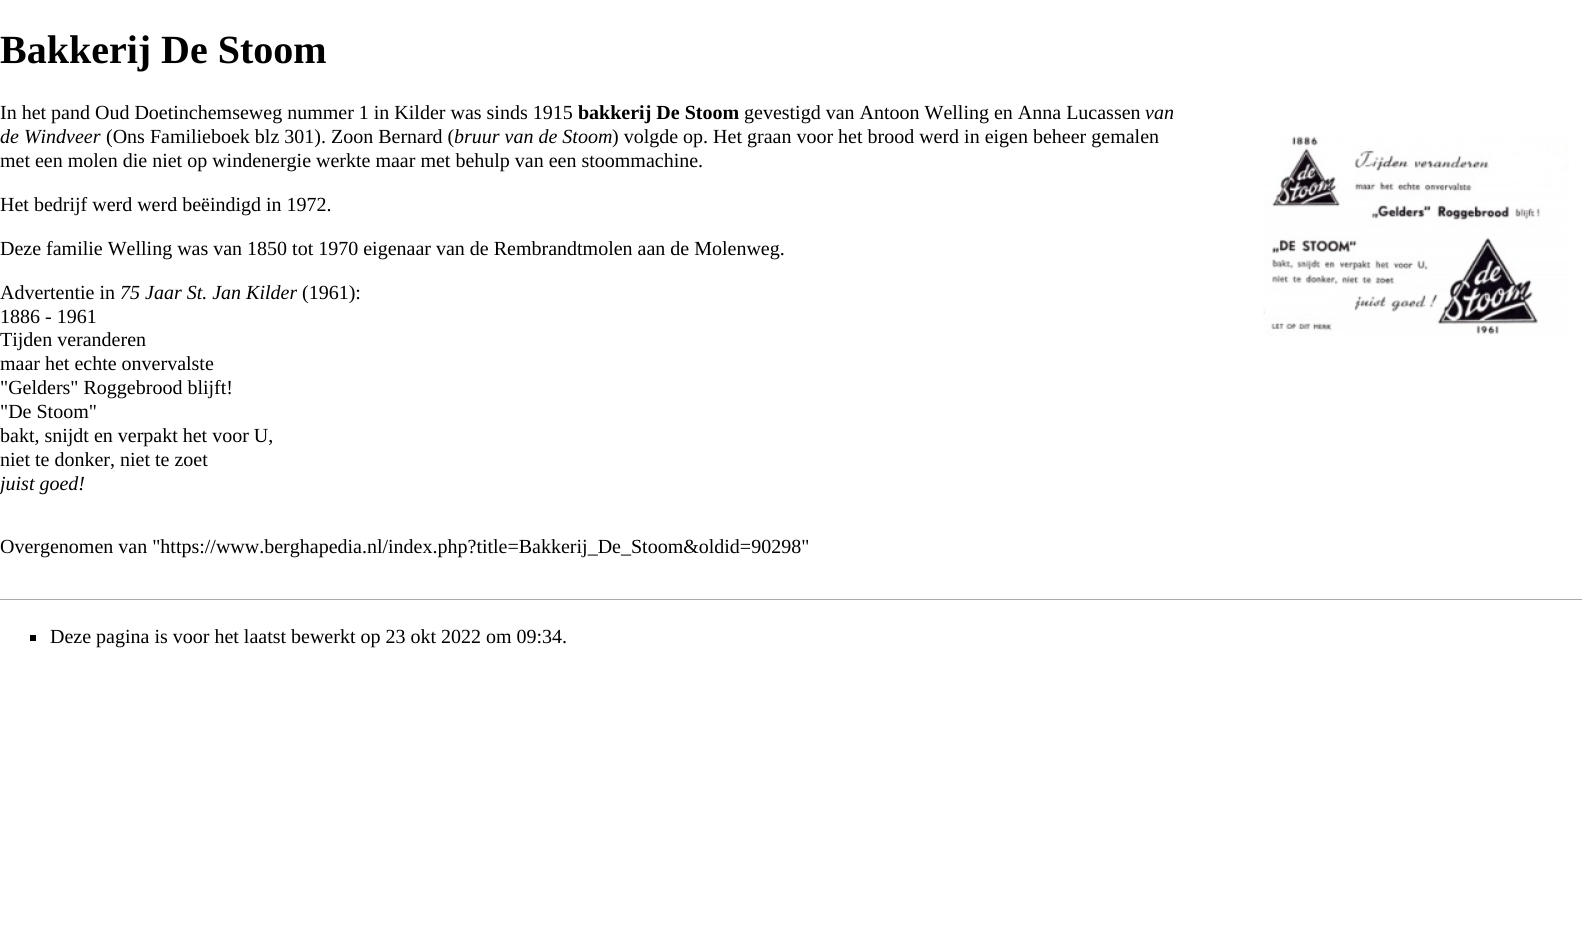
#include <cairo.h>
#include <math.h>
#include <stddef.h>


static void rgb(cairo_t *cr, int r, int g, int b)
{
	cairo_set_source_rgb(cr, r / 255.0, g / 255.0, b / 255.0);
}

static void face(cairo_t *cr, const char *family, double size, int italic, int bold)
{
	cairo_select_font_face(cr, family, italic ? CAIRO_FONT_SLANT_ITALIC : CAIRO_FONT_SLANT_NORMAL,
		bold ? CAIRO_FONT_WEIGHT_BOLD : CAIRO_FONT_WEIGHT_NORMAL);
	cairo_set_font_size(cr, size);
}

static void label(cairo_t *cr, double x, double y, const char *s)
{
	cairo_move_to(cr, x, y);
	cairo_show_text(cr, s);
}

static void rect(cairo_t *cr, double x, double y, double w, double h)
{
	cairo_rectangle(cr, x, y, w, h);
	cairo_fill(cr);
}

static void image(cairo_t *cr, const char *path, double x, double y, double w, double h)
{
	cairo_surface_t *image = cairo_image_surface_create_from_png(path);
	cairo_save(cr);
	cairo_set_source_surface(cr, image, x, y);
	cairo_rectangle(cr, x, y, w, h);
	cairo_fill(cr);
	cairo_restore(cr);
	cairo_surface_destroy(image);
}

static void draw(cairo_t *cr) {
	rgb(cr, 255, 255, 255);
	cairo_paint(cr);
	face(cr, "Liberation Serif", 40, 0, 1);
	rgb(cr, 0, 0, 0);
	label(cr, 0, 63, "Bakkerij De Stoom");
	face(cr, "Liberation Serif", 20, 0, 0);
	label(cr, 0, 119, "In het pand Oud Doetinchemseweg nummer 1 in Kilder was sinds 1915");
	face(cr, "Liberation Serif", 20, 0, 1);
	label(cr, 578, 119, "bakkerij De Stoom");
	face(cr, "Liberation Serif", 20, 0, 0);
	label(cr, 744, 119, "gevestigd van Antoon Welling en Anna Lucassen");
	face(cr, "Liberation Serif", 20, 1, 0);
	label(cr, 1145, 119, "van");
	label(cr, 0, 143, "de Windveer");
	face(cr, "Liberation Serif", 20, 0, 0);
	label(cr, 106, 143, "(Ons Familieboek blz 301). Zoon Bernard (");
	face(cr, "Liberation Serif", 20, 1, 0);
	label(cr, 454, 143, "bruur van de Stoom");
	face(cr, "Liberation Serif", 20, 0, 0);
	label(cr, 612, 143, ") volgde op. Het graan voor het brood werd in eigen beheer gemalen");
	label(cr, 0, 167, "met een molen die niet op windenergie werkte maar met behulp van een stoommachine.");
	image(cr, "image0.png", 1263, 136, 306, 200);
	label(cr, 0, 211, "Het bedrijf werd werd beëindigd in 1972.");
	label(cr, 0, 255, "Deze familie Welling was van 1850 tot 1970 eigenaar van de Rembrandtmolen aan de Molenweg.");
	label(cr, 0, 299, "Advertentie in");
	face(cr, "Liberation Serif", 20, 1, 0);
	label(cr, 120, 299, "75 Jaar St. Jan Kilder");
	face(cr, "Liberation Serif", 20, 0, 0);
	label(cr, 302, 299, "(1961):");
	label(cr, 0, 323, "1886 - 1961");
	label(cr, 0, 346, "Tijden veranderen");
	label(cr, 0, 370, "maar het echte onvervalste");
	label(cr, 0, 394, "\"Gelders\" Roggebrood blijft!");
	label(cr, 0, 418, "\"De Stoom\"");
	label(cr, 0, 442, "bakt, snijdt en verpakt het voor U,");
	label(cr, 0, 466, "niet te donker, niet te zoet");
	face(cr, "Liberation Serif", 20, 1, 0);
	label(cr, 0, 490, "juist goed!");
	face(cr, "Liberation Serif", 20, 0, 0);
	label(cr, 0, 553, "Overgenomen van \"https://www.berghapedia.nl/index.php?title=Bakkerij_De_Stoom&oldid=90298\"");
	rgb(cr, 170, 170, 170);
	rect(cr, 0, 599, 1582, 1);
	rgb(cr, 0, 0, 0);
	rect(cr, 30, 635, 6, 6);
	label(cr, 50, 643, "Deze pagina is voor het laatst bewerkt op 23 okt 2022 om 09:34.");
}

int main(void) {
	cairo_surface_t *surface = cairo_image_surface_create(CAIRO_FORMAT_RGB24, 1582, 942);
	cairo_t *cr = cairo_create(surface);
	cairo_font_options_t *options = cairo_font_options_create();
	cairo_font_options_set_hint_metrics(options, CAIRO_HINT_METRICS_OFF);
	cairo_font_options_set_hint_style(options, CAIRO_HINT_STYLE_NONE);
	cairo_set_font_options(cr, options);
	cairo_set_miter_limit(cr, 4);
	draw(cr);
	cairo_surface_write_to_png(surface, "render.png");
	cairo_font_options_destroy(options);
	cairo_destroy(cr);
	cairo_surface_destroy(surface);
	return 0;
}
